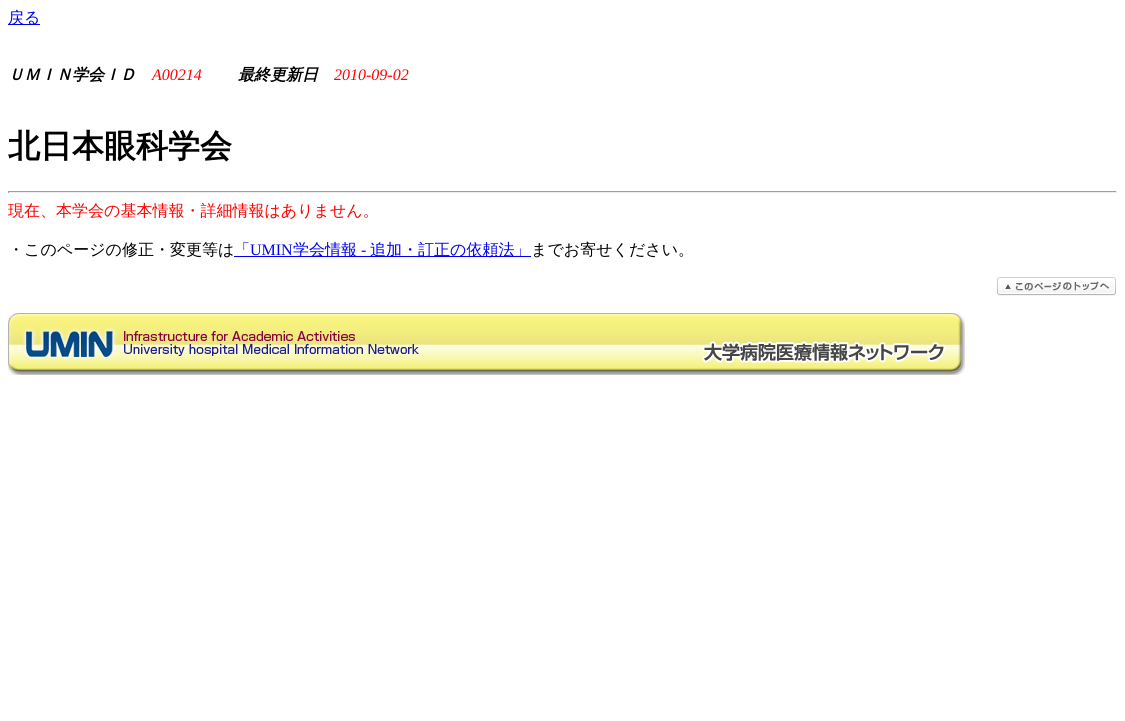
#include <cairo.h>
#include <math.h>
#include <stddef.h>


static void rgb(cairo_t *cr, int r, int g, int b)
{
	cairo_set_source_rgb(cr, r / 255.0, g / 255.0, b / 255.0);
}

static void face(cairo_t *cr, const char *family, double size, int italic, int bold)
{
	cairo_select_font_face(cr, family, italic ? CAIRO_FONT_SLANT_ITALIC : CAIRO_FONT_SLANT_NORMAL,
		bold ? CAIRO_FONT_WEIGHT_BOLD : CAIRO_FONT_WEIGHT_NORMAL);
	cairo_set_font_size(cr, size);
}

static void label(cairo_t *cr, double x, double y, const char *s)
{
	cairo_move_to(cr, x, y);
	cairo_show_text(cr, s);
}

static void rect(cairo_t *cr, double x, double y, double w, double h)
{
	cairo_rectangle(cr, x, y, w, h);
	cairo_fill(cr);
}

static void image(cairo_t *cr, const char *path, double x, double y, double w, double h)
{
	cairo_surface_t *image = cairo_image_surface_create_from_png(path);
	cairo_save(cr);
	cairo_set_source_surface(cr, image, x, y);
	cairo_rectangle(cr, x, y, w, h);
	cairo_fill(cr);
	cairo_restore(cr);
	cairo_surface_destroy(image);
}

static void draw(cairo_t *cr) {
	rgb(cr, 255, 255, 255);
	cairo_paint(cr);
	rgb(cr, 0, 0, 238);
	rect(cr, 8, 24, 32, 1);
	face(cr, "WenQuanYi Zen Hei Medium", 16, 0, 0);
	label(cr, 8, 23, "戻る");
	face(cr, "WenQuanYi Zen Hei", 16, 1, 1);
	rgb(cr, 0, 0, 0);
	label(cr, 8, 80, "ＵＭＩＮ学会ＩＤ");
	face(cr, "Liberation Serif", 16, 1, 0);
	rgb(cr, 255, 0, 0);
	label(cr, 152, 80, "A00214");
	face(cr, "WenQuanYi Zen Hei", 16, 1, 1);
	rgb(cr, 0, 0, 0);
	label(cr, 238, 80, "最終更新日");
	face(cr, "Liberation Serif", 16, 1, 0);
	rgb(cr, 255, 0, 0);
	label(cr, 334, 80, "2010-09-02");
	face(cr, "WenQuanYi Zen Hei", 32, 0, 1);
	rgb(cr, 0, 0, 0);
	label(cr, 8, 157, "北日本眼科学会");
	rgb(cr, 159, 159, 159);
	rect(cr, 8, 191, 1109, 1);
	rgb(cr, 238, 238, 238);
	rect(cr, 1116, 191, 1, 2);
	rect(cr, 8, 192, 1109, 1);
	rgb(cr, 159, 159, 159);
	rect(cr, 8, 191, 1, 2);
	face(cr, "WenQuanYi Zen Hei Medium", 16, 0, 0);
	rgb(cr, 255, 0, 0);
	label(cr, 8, 216, "現在、本学会の基本情報・詳細情報はありません。");
	rgb(cr, 0, 0, 0);
	label(cr, 8, 255, "・このページの修正・変更等は");
	rgb(cr, 0, 0, 238);
	label(cr, 234, 255, "「");
	face(cr, "Liberation Serif", 16, 0, 0);
	label(cr, 250, 255, "UMIN");
	rect(cr, 234, 256, 297, 1);
	face(cr, "WenQuanYi Zen Hei Medium", 16, 0, 0);
	label(cr, 293, 255, "学会情報");
	face(cr, "Liberation Serif", 16, 0, 0);
	label(cr, 361, 255, "-");
	face(cr, "WenQuanYi Zen Hei Medium", 16, 0, 0);
	label(cr, 370, 255, "追加・訂正の依頼法」");
	rgb(cr, 0, 0, 0);
	label(cr, 531, 255, "までお寄せください。");
	image(cr, "image0.png", 997, 277, 119, 19);
	image(cr, "image1.png", 8, 313, 957, 62);
}

int main(void) {
	cairo_surface_t *surface = cairo_image_surface_create(CAIRO_FORMAT_RGB24, 1125, 721);
	cairo_t *cr = cairo_create(surface);
	cairo_font_options_t *options = cairo_font_options_create();
	cairo_font_options_set_hint_metrics(options, CAIRO_HINT_METRICS_OFF);
	cairo_font_options_set_hint_style(options, CAIRO_HINT_STYLE_NONE);
	cairo_set_font_options(cr, options);
	cairo_set_miter_limit(cr, 4);
	draw(cr);
	cairo_surface_write_to_png(surface, "render.png");
	cairo_font_options_destroy(options);
	cairo_destroy(cr);
	cairo_surface_destroy(surface);
	return 0;
}
